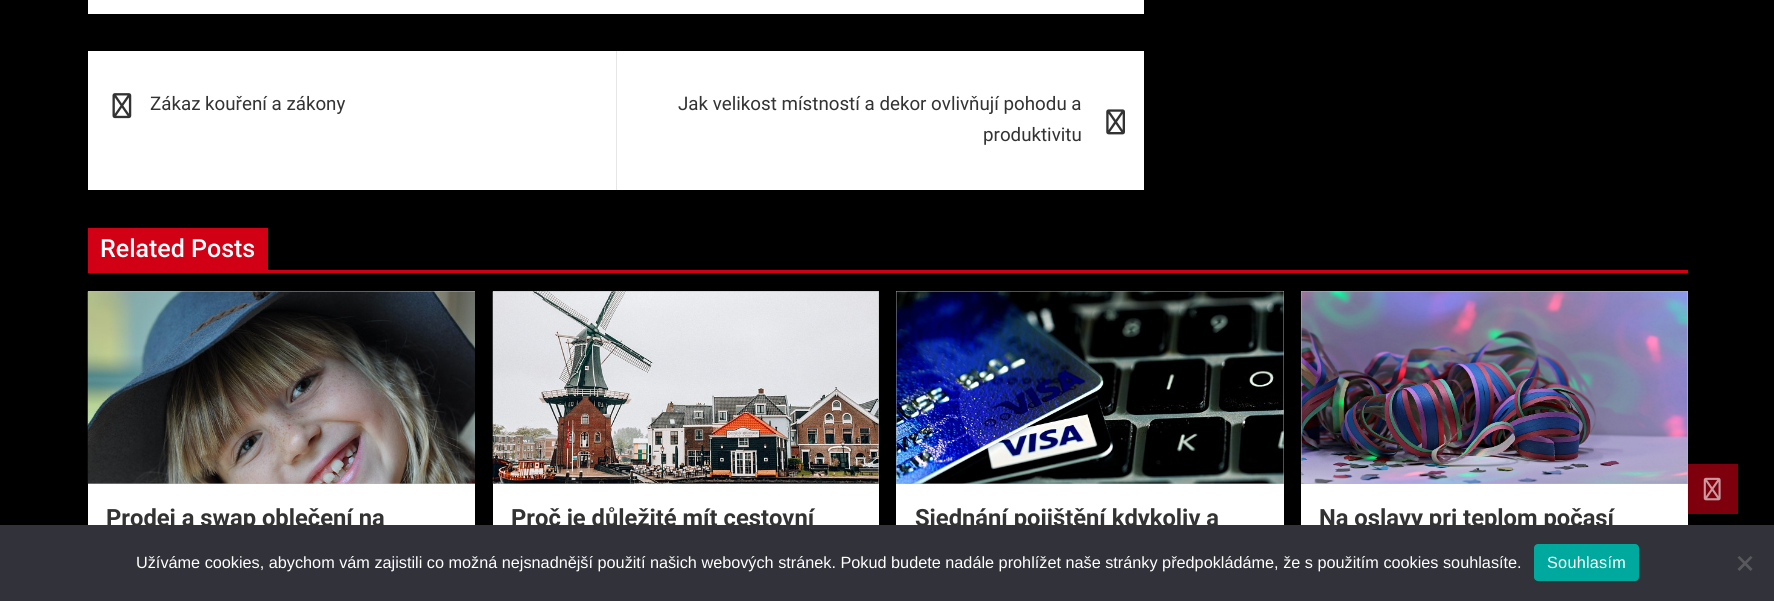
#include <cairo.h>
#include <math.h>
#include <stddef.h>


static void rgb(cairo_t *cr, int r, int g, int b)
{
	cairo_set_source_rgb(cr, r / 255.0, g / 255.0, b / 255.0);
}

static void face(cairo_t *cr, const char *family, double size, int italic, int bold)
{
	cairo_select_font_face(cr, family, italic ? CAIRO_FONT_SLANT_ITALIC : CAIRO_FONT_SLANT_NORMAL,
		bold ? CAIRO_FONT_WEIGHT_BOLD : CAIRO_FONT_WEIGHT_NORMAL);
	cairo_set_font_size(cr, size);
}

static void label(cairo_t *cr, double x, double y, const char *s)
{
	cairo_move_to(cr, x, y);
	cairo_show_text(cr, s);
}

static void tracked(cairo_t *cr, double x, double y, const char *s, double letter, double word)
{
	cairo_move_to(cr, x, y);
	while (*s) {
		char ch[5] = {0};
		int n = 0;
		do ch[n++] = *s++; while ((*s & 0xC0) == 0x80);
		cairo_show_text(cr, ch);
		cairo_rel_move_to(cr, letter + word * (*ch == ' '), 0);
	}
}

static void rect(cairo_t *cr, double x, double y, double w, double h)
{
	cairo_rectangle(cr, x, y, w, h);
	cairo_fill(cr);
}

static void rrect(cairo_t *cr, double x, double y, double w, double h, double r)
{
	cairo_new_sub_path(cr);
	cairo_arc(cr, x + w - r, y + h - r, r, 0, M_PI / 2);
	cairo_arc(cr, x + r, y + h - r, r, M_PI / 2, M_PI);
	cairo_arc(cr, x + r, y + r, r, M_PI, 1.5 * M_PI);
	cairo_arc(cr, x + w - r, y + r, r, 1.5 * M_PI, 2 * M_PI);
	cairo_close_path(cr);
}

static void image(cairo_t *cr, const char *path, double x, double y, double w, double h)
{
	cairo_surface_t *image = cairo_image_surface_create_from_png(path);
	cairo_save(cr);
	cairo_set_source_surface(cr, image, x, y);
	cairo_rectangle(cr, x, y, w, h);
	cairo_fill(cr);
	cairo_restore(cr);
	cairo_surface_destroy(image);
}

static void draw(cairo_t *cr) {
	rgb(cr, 0, 0, 0);
	cairo_paint(cr);
	rgb(cr, 255, 255, 255);
	rect(cr, 88, 0, 1056, 14);
	rect(cr, 88, 51, 1056, 139);
	image(cr, "image0.png", 112, 93, 20, 26);
	face(cr, "Roboto", 18.75, 0, 0);
	rgb(cr, 51, 51, 51);
	label(cr, 150, 110, "Zákaz kouření a zákony");
	rgb(cr, 230, 230, 230);
	rect(cr, 616, 51, 1, 139);
	rgb(cr, 51, 51, 51);
	label(cr, 678, 110, "Jak velikost místností a dekor ovlivňují pohodu a");
	label(cr, 983, 141, "produktivitu");
	image(cr, "image1.png", 1106, 109, 19, 26);
	rgb(cr, 209, 0, 20);
	rect(cr, 88, 270, 1600, 3);
	rect(cr, 88, 228, 180, 42);
	face(cr, "Roboto Medium", 25, 0, 0);
	rgb(cr, 255, 255, 255);
	label(cr, 100, 257, "Related Posts");
	rect(cr, 88, 484, 387, 41);
	rgb(cr, 187, 187, 187);
	rect(cr, 88, 291, 387, 193);
	image(cr, "image2.png", 87, 291, 388, 193);
	face(cr, "Roboto", 23.75, 0, 1);
	rgb(cr, 51, 51, 51);
	label(cr, 106, 526, "Prodej a swap oblečení na");
	rgb(cr, 255, 255, 255);
	rect(cr, 493, 484, 386, 41);
	rgb(cr, 187, 187, 187);
	rect(cr, 493, 291, 386, 193);
	image(cr, "image3.png", 492, 291, 387, 193);
	rgb(cr, 51, 51, 51);
	label(cr, 511, 526, "Proč je důležité mít cestovní");
	rgb(cr, 255, 255, 255);
	rect(cr, 896, 484, 388, 41);
	rgb(cr, 187, 187, 187);
	rect(cr, 896, 291, 388, 193);
	image(cr, "image4.png", 896, 291, 388, 193);
	rgb(cr, 51, 51, 51);
	label(cr, 915, 526, "Sjednání pojištění kdykoliv a");
	rgb(cr, 255, 255, 255);
	rect(cr, 1301, 484, 387, 41);
	rgb(cr, 187, 187, 187);
	rect(cr, 1301, 291, 387, 193);
	image(cr, "image5.png", 1301, 291, 387, 193);
	rgb(cr, 51, 51, 51);
	label(cr, 1319, 526, "Na oslavy pri teplom počasí");
	rgb(cr, 125, 0, 12);
	rect(cr, 1688, 464, 50, 50);
	image(cr, "image6.png", 1703, 477, 18, 24);
	rgb(cr, 50, 50, 58);
	rect(cr, 0, 525, 1774, 76);
	face(cr, "Liberation Sans", 16.25, 0, 0);
	rgb(cr, 255, 255, 255);
	label(cr, 136, 568, "Užíváme cookies, abychom vám zajistili co možná nejsnadnější použití našich webových stránek. Pokud budete nadále prohlížet naše stránky předpokládáme, že s použitím cookies souhlasíte.");
	rgb(cr, 0, 169, 157);
	rrect(cr, 1534, 544, 105, 37, 4);
	cairo_fill(cr);
	rgb(cr, 255, 255, 255);
	tracked(cr, 1547, 568, "Souhlasím", 0.25, 0);
	rgb(cr, 89, 89, 93);
	cairo_new_path(cr);
	cairo_move_to(cr, 1750.5, 556);
	cairo_line_to(cr, 1752.5, 557.5);
	cairo_line_to(cr, 1739.5, 571);
	cairo_line_to(cr, 1737.5, 569);
	cairo_close_path(cr);
	cairo_fill(cr);
	cairo_new_path(cr);
	cairo_move_to(cr, 1737.5, 557.5);
	cairo_line_to(cr, 1739.5, 556);
	cairo_line_to(cr, 1752.5, 569);
	cairo_line_to(cr, 1750.5, 571);
	cairo_close_path(cr);
	cairo_fill(cr);
}

int main(void) {
	cairo_surface_t *surface = cairo_image_surface_create(CAIRO_FORMAT_RGB24, 1774, 601);
	cairo_t *cr = cairo_create(surface);
	cairo_font_options_t *options = cairo_font_options_create();
	cairo_font_options_set_hint_metrics(options, CAIRO_HINT_METRICS_OFF);
	cairo_font_options_set_hint_style(options, CAIRO_HINT_STYLE_NONE);
	cairo_set_font_options(cr, options);
	cairo_set_miter_limit(cr, 4);
	draw(cr);
	cairo_surface_write_to_png(surface, "render.png");
	cairo_font_options_destroy(options);
	cairo_destroy(cr);
	cairo_surface_destroy(surface);
	return 0;
}
